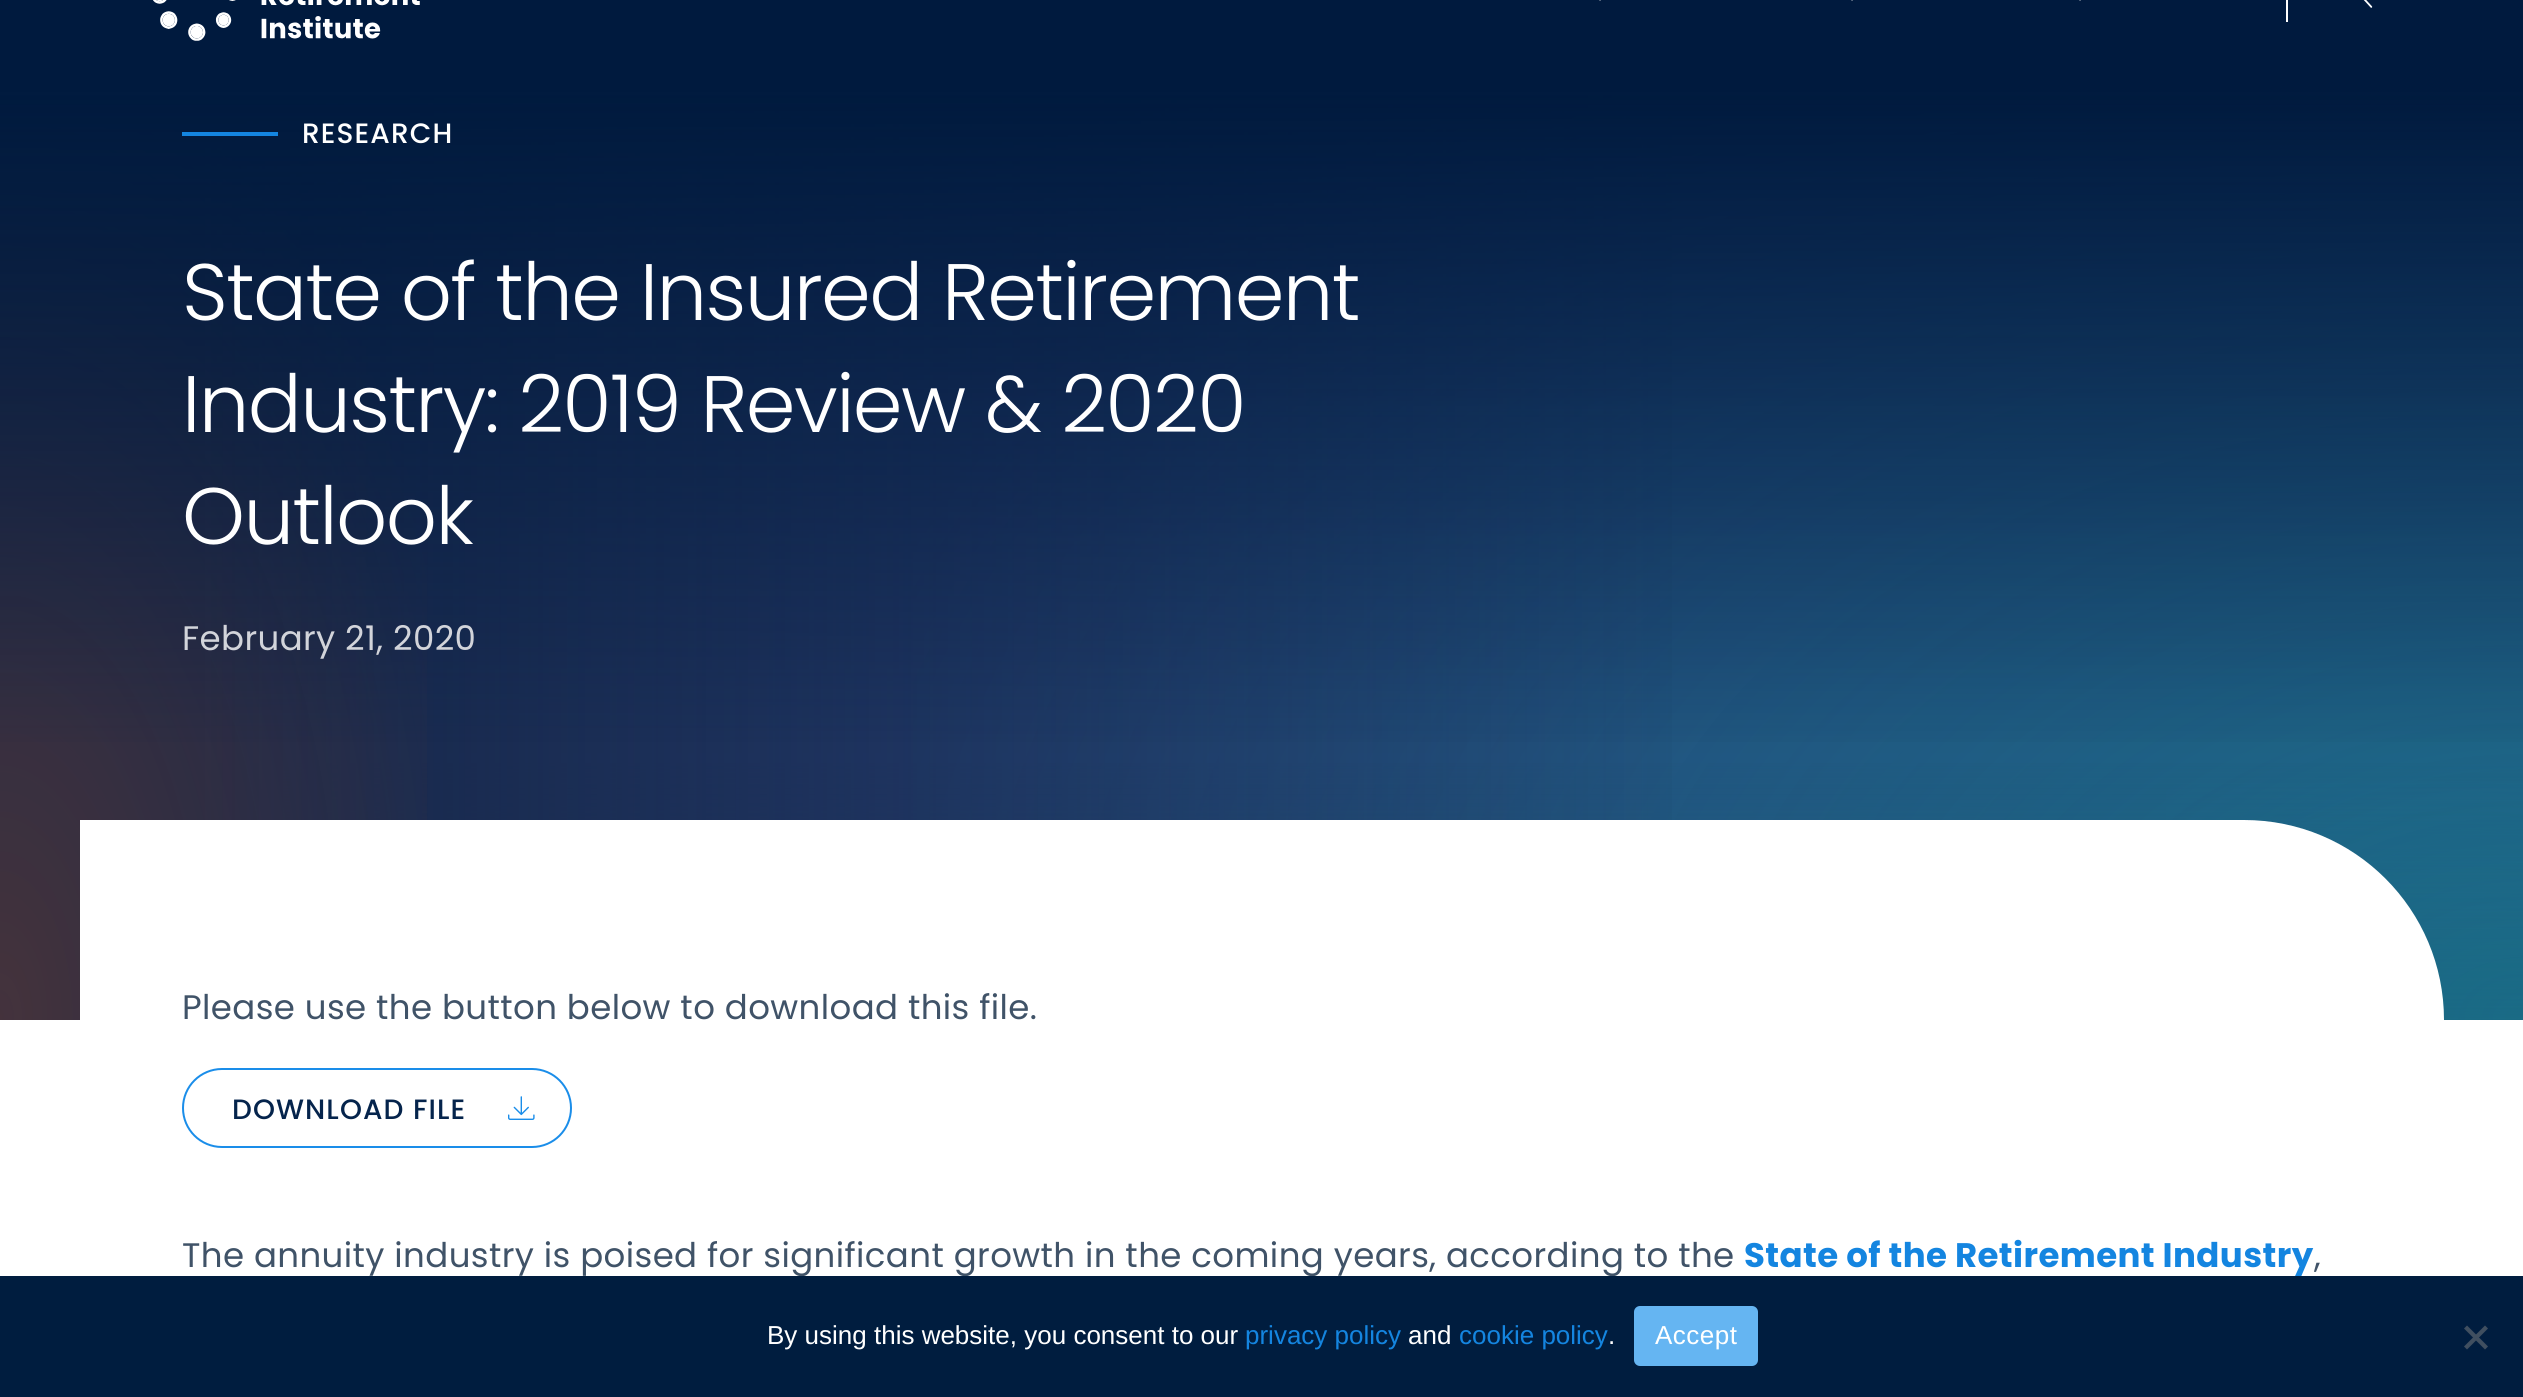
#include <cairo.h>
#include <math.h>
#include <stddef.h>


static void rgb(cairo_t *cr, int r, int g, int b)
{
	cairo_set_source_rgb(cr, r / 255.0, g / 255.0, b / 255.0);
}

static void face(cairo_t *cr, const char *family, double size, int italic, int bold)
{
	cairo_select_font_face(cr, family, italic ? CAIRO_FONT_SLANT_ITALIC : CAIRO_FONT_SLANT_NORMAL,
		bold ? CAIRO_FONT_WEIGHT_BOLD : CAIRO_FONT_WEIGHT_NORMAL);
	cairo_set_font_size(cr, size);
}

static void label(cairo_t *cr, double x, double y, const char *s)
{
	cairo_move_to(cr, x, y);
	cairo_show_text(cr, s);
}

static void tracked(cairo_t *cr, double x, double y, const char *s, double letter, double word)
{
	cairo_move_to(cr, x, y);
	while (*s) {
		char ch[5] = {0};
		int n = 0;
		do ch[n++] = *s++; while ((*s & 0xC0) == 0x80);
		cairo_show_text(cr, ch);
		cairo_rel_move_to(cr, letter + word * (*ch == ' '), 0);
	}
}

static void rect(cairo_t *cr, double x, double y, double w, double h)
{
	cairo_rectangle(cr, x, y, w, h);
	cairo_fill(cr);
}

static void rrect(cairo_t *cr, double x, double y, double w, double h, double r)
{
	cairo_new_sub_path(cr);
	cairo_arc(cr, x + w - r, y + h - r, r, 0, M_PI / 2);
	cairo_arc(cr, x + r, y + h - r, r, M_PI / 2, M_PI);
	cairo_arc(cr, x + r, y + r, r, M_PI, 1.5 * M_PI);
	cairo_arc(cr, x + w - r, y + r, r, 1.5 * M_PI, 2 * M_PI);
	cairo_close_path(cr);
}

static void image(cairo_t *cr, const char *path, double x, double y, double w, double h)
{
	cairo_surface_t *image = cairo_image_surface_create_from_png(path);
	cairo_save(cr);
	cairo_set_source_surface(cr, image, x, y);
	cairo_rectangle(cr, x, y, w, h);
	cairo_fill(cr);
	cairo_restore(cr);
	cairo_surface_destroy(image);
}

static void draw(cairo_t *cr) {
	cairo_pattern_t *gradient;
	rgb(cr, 255, 255, 255);
	cairo_paint(cr);
	rgb(cr, 0, 26, 62);
	rect(cr, 0, 0, 2523, 72);
	image(cr, "image0.png", 153, 0, 267, 41);
	image(cr, "image1.png", 1599, 0, 2, 1);
	image(cr, "image1.png", 1851, 0, 2, 1);
	image(cr, "image1.png", 2079, 0, 2, 1);
	rgb(cr, 255, 255, 255);
	rect(cr, 2286, 0, 2, 22);
	image(cr, "image2.png", 2363, 0, 10, 8);
	gradient = cairo_pattern_create_linear(1262, 72, 1262, 1020);
	cairo_pattern_add_color_stop_rgba(gradient, 0.27, 0.145, 0.247, 0.455, 1);
	cairo_pattern_add_color_stop_rgba(gradient, 1, 0.153, 0.267, 0.49, 1);
	cairo_set_source(cr, gradient);
	cairo_pattern_destroy(gradient);
	rect(cr, 211, 95, 2312, 923);
	gradient = cairo_pattern_create_radial(0, 0, 0, 0, 0, 1);
	cairo_pattern_set_matrix(gradient, &(cairo_matrix_t){1.0 / 466, 0, 0, 1.0 / 356, -1.0 * 2462 / 466, -1.0 * 1044 / 356});
	cairo_pattern_add_color_stop_rgba(gradient, 0, 0.176, 0.369, 0.635, 0.2);
	cairo_pattern_add_color_stop_rgba(gradient, 1, 0.176, 0.369, 0.635, 0);
	cairo_set_source(cr, gradient);
	cairo_pattern_destroy(gradient);
	rect(cr, 2166, 781, 357, 237);
	gradient = cairo_pattern_create_radial(0, 0, 0, 0, 0, 1);
	cairo_pattern_set_matrix(gradient, &(cairo_matrix_t){1.0 / 492, 0, 0, 1.0 / 1010, -1.0 * 0 / 492, -1.0 * 1020 / 1010});
	cairo_pattern_add_color_stop_rgba(gradient, 0, 0.412, 0.318, 0.38, 0.2);
	cairo_pattern_add_color_stop_rgba(gradient, 1, 0.412, 0.318, 0.38, 0);
	cairo_set_source(cr, gradient);
	cairo_pattern_destroy(gradient);
	rect(cr, 211, 300, 187, 520);
	gradient = cairo_pattern_create_linear(1262, 1020, 1262, 72);
	cairo_pattern_add_color_stop_rgba(gradient, 0, 0.145, 0.247, 0.455, 1);
	cairo_pattern_add_color_stop_rgba(gradient, 0.37, 0.145, 0.247, 0.455, 0);
	cairo_set_source(cr, gradient);
	cairo_pattern_destroy(gradient);
	rect(cr, 211, 763, 2312, 257);
	gradient = cairo_pattern_create_radial(0, 0, 0, 0, 0, 1);
	cairo_pattern_set_matrix(gradient, &(cairo_matrix_t){1.0 / 1763, 0, 0, 1.0 / 1195, -1.0 * 2524 / 1763, -1.0 * 1020 / 1195});
	cairo_pattern_add_color_stop_rgba(gradient, 0, 0, 0.82, 0.675, 0.3);
	cairo_pattern_add_color_stop_rgba(gradient, 1, 0, 0.82, 0.675, 0);
	cairo_set_source(cr, gradient);
	cairo_pattern_destroy(gradient);
	rect(cr, 913, 95, 1610, 925);
	gradient = cairo_pattern_create_linear(0, 546, 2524, 546);
	cairo_pattern_add_color_stop_rgba(gradient, 0.08, 0.09, 0.153, 0.286, 1);
	cairo_pattern_add_color_stop_rgba(gradient, 0.69, 0.09, 0.153, 0.286, 0);
	cairo_set_source(cr, gradient);
	cairo_pattern_destroy(gradient);
	rect(cr, 0, 95, 1672, 925);
	gradient = cairo_pattern_create_radial(0, 0, 0, 0, 0, 1);
	cairo_pattern_set_matrix(gradient, &(cairo_matrix_t){1.0 / 492, 0, 0, 1.0 / 1010, -1.0 * 0 / 492, -1.0 * 1020 / 1010});
	cairo_pattern_add_color_stop_rgba(gradient, 0, 0.976, 0.38, 0.031, 0.2);
	cairo_pattern_add_color_stop_rgba(gradient, 1, 0.976, 0.38, 0.031, 0);
	cairo_set_source(cr, gradient);
	cairo_pattern_destroy(gradient);
	rect(cr, 0, 120, 427, 900);
	gradient = cairo_pattern_create_linear(1262, 72, 1262, 1020);
	cairo_pattern_add_color_stop_rgba(gradient, 0.02, 0, 0.102, 0.243, 1);
	cairo_pattern_add_color_stop_rgba(gradient, 0.73, 0, 0.102, 0.243, 0);
	cairo_set_source(cr, gradient);
	cairo_pattern_destroy(gradient);
	rect(cr, 0, 72, 2523, 670);
	rgb(cr, 20, 133, 224);
	rect(cr, 182, 132, 96, 4);
	face(cr, "Poppins Medium", 28, 0, 0);
	rgb(cr, 255, 255, 255);
	tracked(cr, 302, 143, "RESEARCH", 1.1, 0);
	face(cr, "Poppins Light", 80, 0, 0);
	tracked(cr, 182, 320, "State of the Insured Retirement", -1.6, 0);
	tracked(cr, 182, 432, "Industry: 2019 Review & 2020", -1.6, 0);
	tracked(cr, 182, 544, "Outlook", -1.6, 0);
	face(cr, "Poppins", 34, 0, 0);
	rgb(cr, 210, 212, 218);
	tracked(cr, 182, 650, "February 21, 2020", 0.4, 0);
	rgb(cr, 255, 255, 255);
	cairo_new_path(cr);
	cairo_move_to(cr, 80, 820);
	cairo_line_to(cr, 2244, 820);
	cairo_curve_to(cr, 2354.5, 820, 2444, 909.5, 2444, 1020);
	cairo_line_to(cr, 80, 1020);
	cairo_close_path(cr);
	cairo_fill(cr);
	rgb(cr, 64, 83, 104);
	tracked(cr, 182, 1019, "Please use the button below to download this file.", 0.4, 0);
	rrect(cr, 183, 1069, 388, 78, 39);
	rgb(cr, 26, 141, 233);
	cairo_stroke(cr);
	face(cr, "Poppins Medium", 28, 0, 0);
	rgb(cr, 5, 36, 76);
	tracked(cr, 232, 1119, "DOWNLOAD FILE", 1.1, 0);
	image(cr, "image3.png", 508, 1096, 27, 24);
	face(cr, "Poppins", 34, 0, 0);
	rgb(cr, 64, 83, 104);
	tracked(cr, 182, 1267, "The annuity industry is poised for significant growth in the coming years, according to the", 0.4, 0);
	face(cr, "Poppins", 34, 0, 1);
	rgb(cr, 20, 133, 224);
	tracked(cr, 1744, 1267, "State of the Retirement Industry", 0.4, 0);
	face(cr, "Poppins", 34, 0, 0);
	rgb(cr, 64, 83, 104);
	tracked(cr, 2314, 1267, ",", 0.4, 0);
	rgb(cr, 0, 29, 63);
	rect(cr, 0, 1276, 2523, 121);
	face(cr, "Liberation Sans", 26, 0, 0);
	rgb(cr, 255, 255, 255);
	label(cr, 767, 1344, "By using this website, you consent to our");
	rgb(cr, 20, 133, 224);
	label(cr, 1245, 1344, "privacy policy");
	rgb(cr, 255, 255, 255);
	label(cr, 1408, 1344, "and");
	rgb(cr, 20, 133, 224);
	label(cr, 1459, 1344, "cookie policy");
	rgb(cr, 255, 255, 255);
	label(cr, 1608, 1344, ".");
	rgb(cr, 101, 181, 242);
	rrect(cr, 1634, 1306, 124, 60, 6);
	cairo_fill(cr);
	rgb(cr, 255, 255, 255);
	tracked(cr, 1655, 1344, "Accept", 0.5, 0);
	rgb(cr, 64, 79, 96);
	cairo_new_path(cr);
	cairo_move_to(cr, 2485, 1325.5);
	cairo_line_to(cr, 2488, 1328.5);
	cairo_line_to(cr, 2467, 1349.5);
	cairo_line_to(cr, 2464, 1346.5);
	cairo_close_path(cr);
	cairo_fill(cr);
	cairo_new_path(cr);
	cairo_move_to(cr, 2464, 1328.5);
	cairo_line_to(cr, 2467, 1325.5);
	cairo_line_to(cr, 2488, 1346.5);
	cairo_line_to(cr, 2485, 1349.5);
	cairo_close_path(cr);
	cairo_fill(cr);
}

int main(void) {
	cairo_surface_t *surface = cairo_image_surface_create(CAIRO_FORMAT_RGB24, 2523, 1397);
	cairo_t *cr = cairo_create(surface);
	cairo_font_options_t *options = cairo_font_options_create();
	cairo_font_options_set_hint_metrics(options, CAIRO_HINT_METRICS_OFF);
	cairo_font_options_set_hint_style(options, CAIRO_HINT_STYLE_NONE);
	cairo_set_font_options(cr, options);
	cairo_set_miter_limit(cr, 4);
	draw(cr);
	cairo_surface_write_to_png(surface, "render.png");
	cairo_font_options_destroy(options);
	cairo_destroy(cr);
	cairo_surface_destroy(surface);
	return 0;
}
